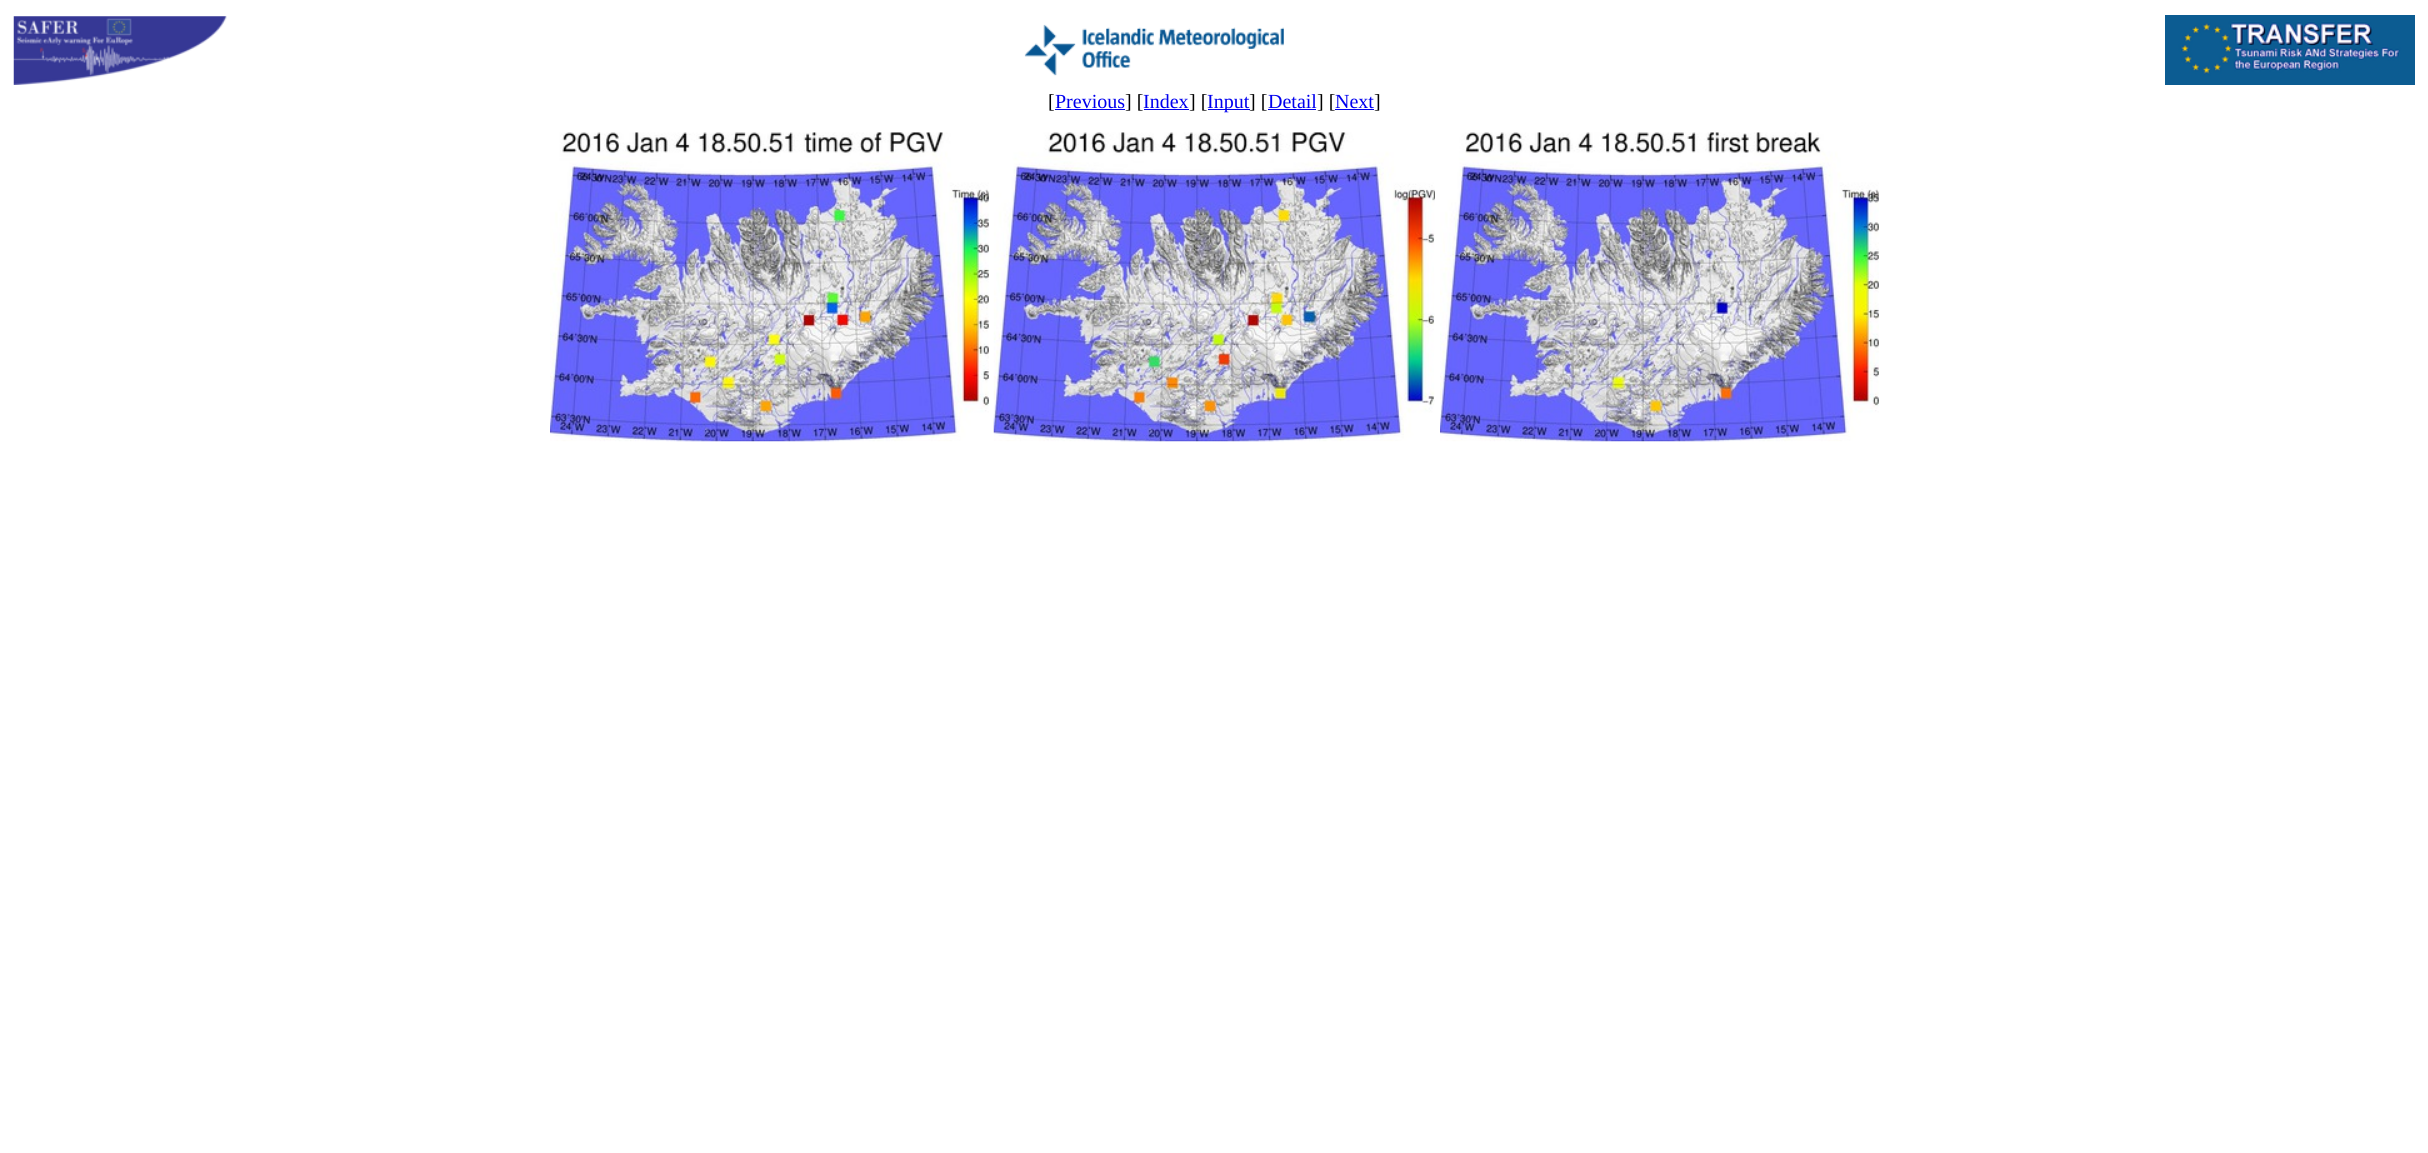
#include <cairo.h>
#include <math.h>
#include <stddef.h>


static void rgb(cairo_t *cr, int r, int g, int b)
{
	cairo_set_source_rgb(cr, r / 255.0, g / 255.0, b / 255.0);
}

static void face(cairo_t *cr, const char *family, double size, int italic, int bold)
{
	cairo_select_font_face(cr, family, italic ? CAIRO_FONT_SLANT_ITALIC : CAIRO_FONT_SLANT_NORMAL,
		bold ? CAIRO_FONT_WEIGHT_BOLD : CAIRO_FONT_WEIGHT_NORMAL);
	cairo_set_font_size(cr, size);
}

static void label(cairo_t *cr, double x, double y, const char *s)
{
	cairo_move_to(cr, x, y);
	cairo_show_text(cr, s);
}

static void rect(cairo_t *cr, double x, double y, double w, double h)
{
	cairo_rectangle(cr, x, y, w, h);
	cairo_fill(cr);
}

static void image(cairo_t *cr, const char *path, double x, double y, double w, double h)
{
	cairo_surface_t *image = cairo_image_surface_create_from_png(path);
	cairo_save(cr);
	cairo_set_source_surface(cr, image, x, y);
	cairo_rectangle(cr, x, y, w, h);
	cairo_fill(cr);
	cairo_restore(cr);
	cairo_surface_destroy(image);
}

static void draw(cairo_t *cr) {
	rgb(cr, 255, 255, 255);
	cairo_paint(cr);
	image(cr, "image0.png", 13, 16, 214, 69);
	image(cr, "image1.png", 1024, 24, 260, 52);
	image(cr, "image2.png", 2165, 15, 250, 70);
	face(cr, "Liberation Serif", 20, 0, 0);
	rgb(cr, 0, 0, 0);
	label(cr, 1048, 108, "[");
	rgb(cr, 0, 0, 238);
	label(cr, 1055, 108, "Previous");
	rect(cr, 1055, 109, 70, 1);
	rgb(cr, 0, 0, 0);
	label(cr, 1125, 108, "] [");
	rgb(cr, 0, 0, 238);
	label(cr, 1143, 108, "Index");
	rect(cr, 1144, 109, 45, 1);
	rgb(cr, 0, 0, 0);
	label(cr, 1189, 108, "] [");
	rgb(cr, 0, 0, 238);
	rect(cr, 1208, 109, 42, 1);
	label(cr, 1207, 108, "Input");
	rgb(cr, 0, 0, 0);
	label(cr, 1249, 108, "] [");
	rgb(cr, 0, 0, 238);
	label(cr, 1268, 108, "Detail");
	rect(cr, 1268, 109, 48, 1);
	rgb(cr, 0, 0, 0);
	label(cr, 1317, 108, "] [");
	rgb(cr, 0, 0, 238);
	label(cr, 1335, 108, "Next");
	rect(cr, 1335, 109, 39, 1);
	rgb(cr, 0, 0, 0);
	label(cr, 1374, 108, "]");
	image(cr, "image3.png", 550, 132, 439, 310);
	image(cr, "image4.png", 993, 132, 442, 310);
	image(cr, "image5.png", 1440, 132, 439, 310);
}

int main(void) {
	cairo_surface_t *surface = cairo_image_surface_create(CAIRO_FORMAT_RGB24, 2428, 1153);
	cairo_t *cr = cairo_create(surface);
	cairo_font_options_t *options = cairo_font_options_create();
	cairo_font_options_set_hint_metrics(options, CAIRO_HINT_METRICS_OFF);
	cairo_font_options_set_hint_style(options, CAIRO_HINT_STYLE_NONE);
	cairo_set_font_options(cr, options);
	cairo_set_miter_limit(cr, 4);
	draw(cr);
	cairo_surface_write_to_png(surface, "render.png");
	cairo_font_options_destroy(options);
	cairo_destroy(cr);
	cairo_surface_destroy(surface);
	return 0;
}
